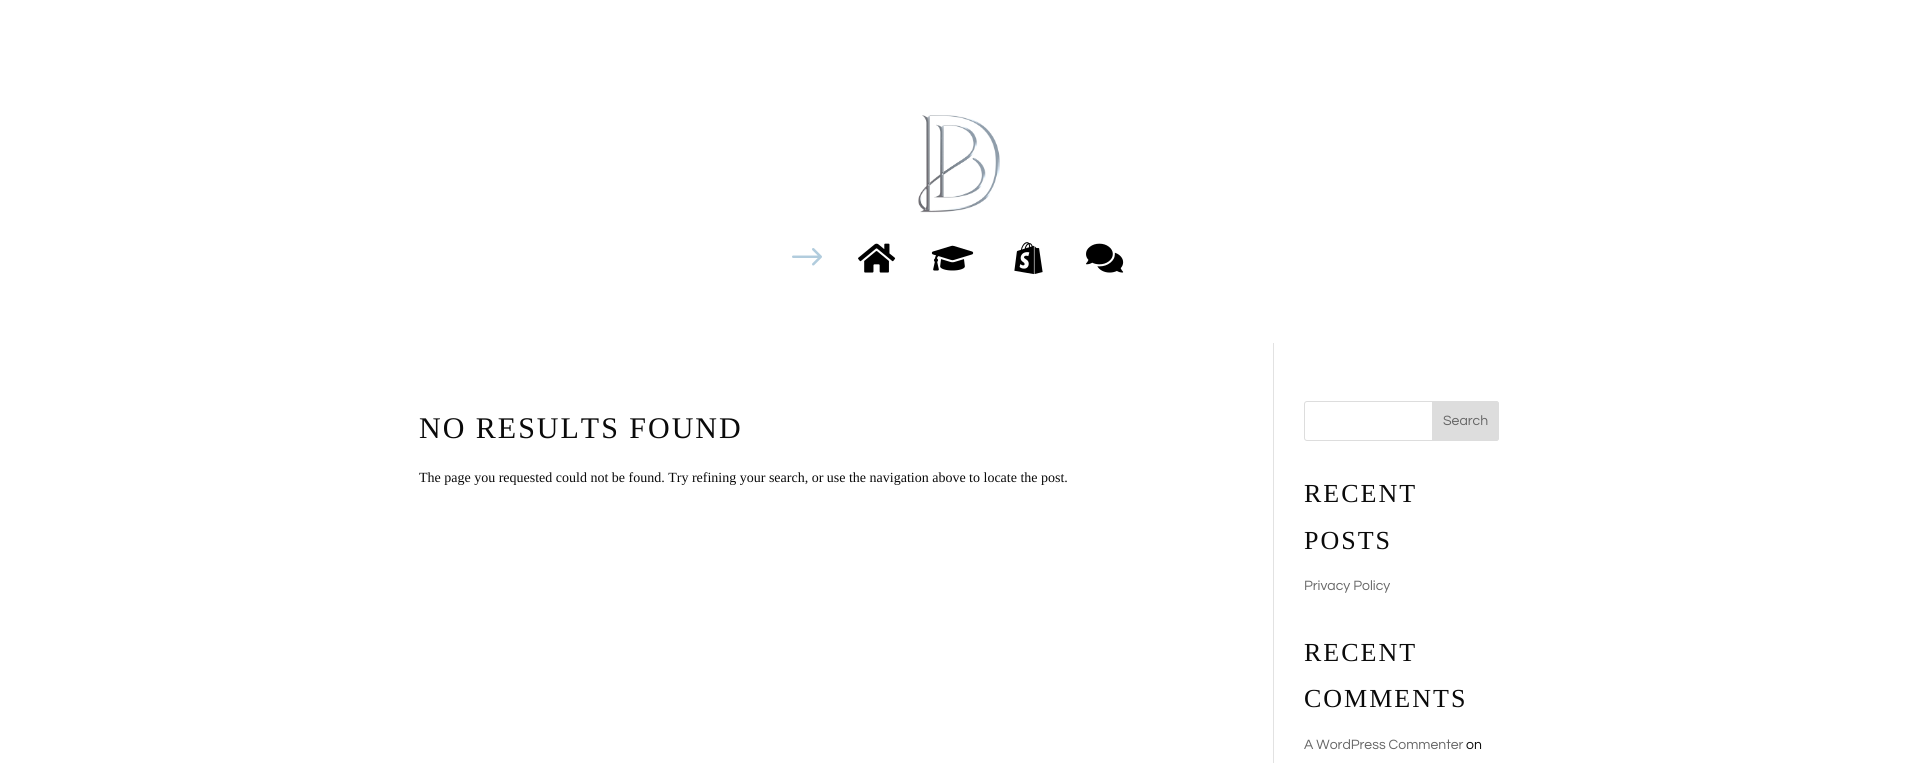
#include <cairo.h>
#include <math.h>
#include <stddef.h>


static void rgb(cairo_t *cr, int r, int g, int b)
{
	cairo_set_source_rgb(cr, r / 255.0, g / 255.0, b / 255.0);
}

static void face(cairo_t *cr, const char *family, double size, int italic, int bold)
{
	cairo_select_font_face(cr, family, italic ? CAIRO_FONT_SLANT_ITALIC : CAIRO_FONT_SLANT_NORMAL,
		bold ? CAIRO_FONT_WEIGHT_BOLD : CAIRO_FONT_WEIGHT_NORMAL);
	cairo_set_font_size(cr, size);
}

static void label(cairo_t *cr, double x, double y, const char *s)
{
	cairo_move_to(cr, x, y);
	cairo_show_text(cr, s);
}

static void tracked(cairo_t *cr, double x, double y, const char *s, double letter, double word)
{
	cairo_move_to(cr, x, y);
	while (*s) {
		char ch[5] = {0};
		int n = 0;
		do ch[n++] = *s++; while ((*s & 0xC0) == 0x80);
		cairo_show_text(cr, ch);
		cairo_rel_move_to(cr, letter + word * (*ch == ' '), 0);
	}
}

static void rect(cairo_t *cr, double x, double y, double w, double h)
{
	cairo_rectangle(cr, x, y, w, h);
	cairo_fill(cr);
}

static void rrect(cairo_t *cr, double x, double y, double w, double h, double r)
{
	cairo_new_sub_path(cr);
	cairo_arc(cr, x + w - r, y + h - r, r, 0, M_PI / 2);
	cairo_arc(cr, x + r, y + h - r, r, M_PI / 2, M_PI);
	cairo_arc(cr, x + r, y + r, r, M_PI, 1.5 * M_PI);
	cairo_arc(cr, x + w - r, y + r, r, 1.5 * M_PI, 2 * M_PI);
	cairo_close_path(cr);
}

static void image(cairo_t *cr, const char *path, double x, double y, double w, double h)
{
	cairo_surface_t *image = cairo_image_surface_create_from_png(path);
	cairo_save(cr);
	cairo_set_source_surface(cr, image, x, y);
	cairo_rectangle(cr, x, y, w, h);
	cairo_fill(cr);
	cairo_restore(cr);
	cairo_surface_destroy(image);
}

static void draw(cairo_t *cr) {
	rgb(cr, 255, 255, 255);
	cairo_paint(cr);
	image(cr, "image0.png", 918, 115, 82, 98);
	image(cr, "image1.png", 792, 248, 30, 18);
	image(cr, "image2.png", 858, 243, 38, 30);
	image(cr, "image3.png", 931, 245, 43, 26);
	image(cr, "image4.png", 1014, 242, 29, 33);
	image(cr, "image5.png", 1086, 243, 38, 30);
	rgb(cr, 226, 226, 226);
	rect(cr, 1273, 343, 1, 420);
	face(cr, "Liberation Serif", 30, 0, 0);
	rgb(cr, 10, 10, 10);
	tracked(cr, 419, 438, "NO RESULTS FOUND", 2, 0);
	face(cr, "Liberation Serif", 14, 0, 0);
	label(cr, 419, 482, "The page you requested could not be found. Try refining your search, or use the navigation above to locate the post.");
	rrect(cr, 1304.5, 401.5, 194, 39, 2.5);
	rgb(cr, 221, 221, 221);
	cairo_set_line_width(cr, 1);
	cairo_stroke(cr);
	cairo_new_path(cr);
	cairo_move_to(cr, 1432.5, 401.5);
	cairo_line_to(cr, 1496, 401.5);
	cairo_curve_to(cr, 1497.5, 401.5, 1498.5, 402.5, 1498.5, 404);
	cairo_line_to(cr, 1498.5, 438);
	cairo_curve_to(cr, 1498.5, 439.5, 1497.5, 440.5, 1496, 440.5);
	cairo_line_to(cr, 1432.5, 440.5);
	cairo_close_path(cr);
	cairo_fill_preserve(cr);
	cairo_stroke(cr);
	face(cr, "Questrial", 14, 0, 0);
	rgb(cr, 102, 102, 102);
	label(cr, 1443, 425, "Search");
	face(cr, "Liberation Serif", 26, 0, 0);
	rgb(cr, 10, 10, 10);
	tracked(cr, 1304, 502, "RECENT", 2, 0);
	tracked(cr, 1304, 549, "POSTS", 2, 0);
	face(cr, "Questrial", 14, 0, 0);
	rgb(cr, 102, 102, 102);
	label(cr, 1304, 590, "Privacy Policy");
	face(cr, "Liberation Serif", 26, 0, 0);
	rgb(cr, 10, 10, 10);
	tracked(cr, 1304, 661, "RECENT", 2, 0);
	tracked(cr, 1304, 707, "COMMENTS", 2, 0);
	face(cr, "Questrial", 14, 0, 0);
	rgb(cr, 102, 102, 102);
	label(cr, 1304, 749, "A WordPress Commenter");
	rgb(cr, 10, 10, 10);
	label(cr, 1466, 749, "on");
}

int main(void) {
	cairo_surface_t *surface = cairo_image_surface_create(CAIRO_FORMAT_RGB24, 1918, 763);
	cairo_t *cr = cairo_create(surface);
	cairo_font_options_t *options = cairo_font_options_create();
	cairo_font_options_set_hint_metrics(options, CAIRO_HINT_METRICS_OFF);
	cairo_font_options_set_hint_style(options, CAIRO_HINT_STYLE_NONE);
	cairo_set_font_options(cr, options);
	cairo_set_miter_limit(cr, 4);
	draw(cr);
	cairo_surface_write_to_png(surface, "render.png");
	cairo_font_options_destroy(options);
	cairo_destroy(cr);
	cairo_surface_destroy(surface);
	return 0;
}
